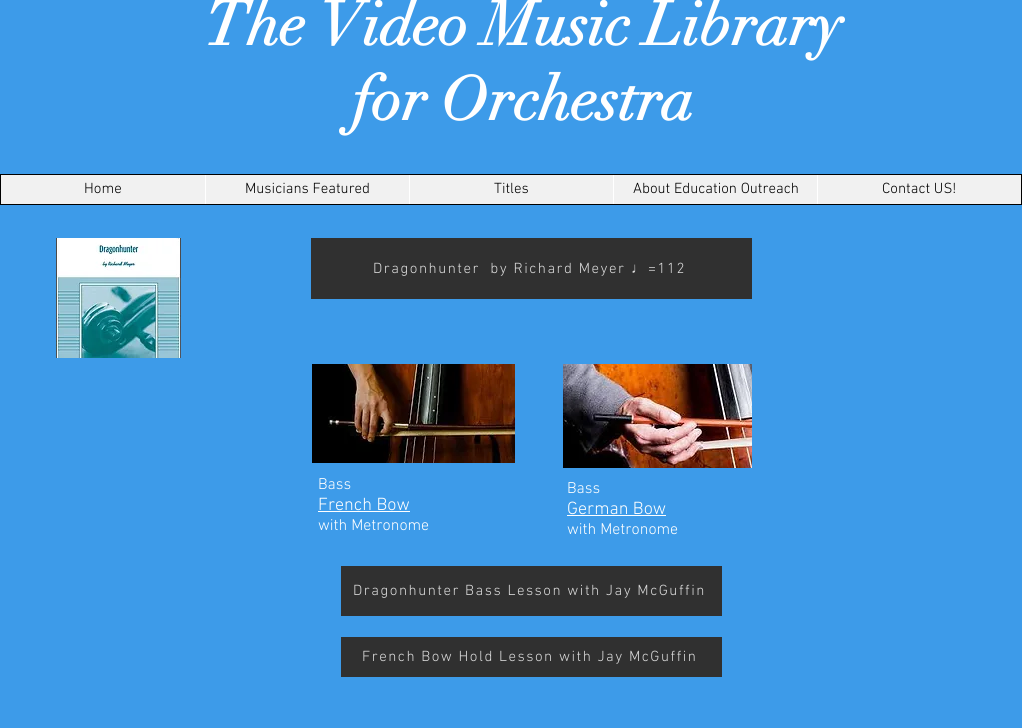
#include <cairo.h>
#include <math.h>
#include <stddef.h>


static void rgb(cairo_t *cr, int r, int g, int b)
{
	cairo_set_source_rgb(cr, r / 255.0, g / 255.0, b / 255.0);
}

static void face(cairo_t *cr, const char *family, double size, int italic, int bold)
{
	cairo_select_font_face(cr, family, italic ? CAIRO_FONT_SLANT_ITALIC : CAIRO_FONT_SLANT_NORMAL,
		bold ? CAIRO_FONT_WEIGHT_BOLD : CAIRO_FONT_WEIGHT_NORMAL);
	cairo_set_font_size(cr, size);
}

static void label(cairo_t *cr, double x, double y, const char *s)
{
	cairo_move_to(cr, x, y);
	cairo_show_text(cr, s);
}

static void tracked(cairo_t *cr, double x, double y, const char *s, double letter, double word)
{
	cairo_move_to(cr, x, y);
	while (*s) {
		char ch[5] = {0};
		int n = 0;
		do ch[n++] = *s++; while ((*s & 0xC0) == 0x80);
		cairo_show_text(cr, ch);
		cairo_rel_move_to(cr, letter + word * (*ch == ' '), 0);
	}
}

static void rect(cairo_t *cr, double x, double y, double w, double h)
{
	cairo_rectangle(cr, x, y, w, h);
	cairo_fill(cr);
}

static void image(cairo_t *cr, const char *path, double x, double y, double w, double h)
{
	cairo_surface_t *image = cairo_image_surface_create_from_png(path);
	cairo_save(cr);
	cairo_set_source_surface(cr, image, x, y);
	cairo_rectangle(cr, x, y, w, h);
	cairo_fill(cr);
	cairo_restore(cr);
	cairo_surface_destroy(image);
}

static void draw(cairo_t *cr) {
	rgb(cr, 61, 155, 233);
	cairo_paint(cr);
	face(cr, "didot", 61, 0, 1);
	rgb(cr, 255, 255, 255);
	label(cr, 205, 45, "The Video Music Library");
	label(cr, 352, 120, "for Orchestra");
	rgb(cr, 241, 241, 241);
	cairo_rectangle(cr, 0.5, 174.5, 1021, 30);
	cairo_fill_preserve(cr);
	rgb(cr, 0, 0, 0);
	cairo_set_line_width(cr, 1);
	cairo_stroke(cr);
	face(cr, "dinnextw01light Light", 15, 0, 0);
	label(cr, 84, 193, "Home");
	rgb(cr, 255, 255, 255);
	rect(cr, 205, 175, 1, 29);
	rgb(cr, 0, 0, 0);
	label(cr, 245, 193, "Musicians Featured");
	rgb(cr, 255, 255, 255);
	rect(cr, 409, 175, 1, 29);
	rgb(cr, 0, 0, 0);
	label(cr, 494, 193, "Titles");
	rgb(cr, 255, 255, 255);
	rect(cr, 613, 175, 1, 29);
	rgb(cr, 0, 0, 0);
	label(cr, 633, 193, "About Education Outreach");
	rgb(cr, 255, 255, 255);
	rect(cr, 817, 175, 1, 29);
	rgb(cr, 0, 0, 0);
	label(cr, 882, 193, "Contact US!");
	image(cr, "image0.png", 56, 238, 125, 120);
	rgb(cr, 48, 48, 48);
	rect(cr, 311, 238, 441, 61);
	rgb(cr, 218, 218, 218);
	tracked(cr, 373, 273, "Dragonhunter  by Richard Meyer", 1.5, 0);
	face(cr, "Liberation Sans", 15, 0, 0);
	tracked(cr, 631, 273, "♩", 1.5, 0);
	face(cr, "dinnextw01light Light", 15, 0, 0);
	tracked(cr, 648, 273, "=112", 1.5, 0);
	image(cr, "image1.png", 312, 364, 203, 99);
	face(cr, "dinnextw01light Light", 16, 0, 0);
	rgb(cr, 255, 255, 255);
	label(cr, 318, 489, "Bass");
	face(cr, "dinnextw01light Light", 18, 0, 0);
	label(cr, 318, 510, "French Bow");
	rect(cr, 318, 511, 92, 1);
	face(cr, "dinnextw01light Light", 16, 0, 0);
	label(cr, 318, 530, "with Metronome");
	image(cr, "image2.png", 563, 364, 189, 104);
	label(cr, 567, 493, "Bass");
	face(cr, "dinnextw01light Light", 18, 0, 0);
	label(cr, 567, 514, "German Bow");
	rect(cr, 567, 515, 99, 1);
	face(cr, "dinnextw01light Light", 16, 0, 0);
	label(cr, 567, 534, "with Metronome");
	rgb(cr, 48, 48, 48);
	rect(cr, 341, 566, 381, 50);
	face(cr, "dinnextw01light Light", 15, 0, 0);
	rgb(cr, 218, 218, 218);
	tracked(cr, 353, 595, "Dragonhunter Bass Lesson with Jay McGuffin", 1.5, 0);
	rgb(cr, 48, 48, 48);
	rect(cr, 341, 637, 381, 40);
	rgb(cr, 218, 218, 218);
	tracked(cr, 362, 661, "French Bow Hold Lesson with Jay McGuffin", 1.5, 0);
}

int main(void) {
	cairo_surface_t *surface = cairo_image_surface_create(CAIRO_FORMAT_RGB24, 1022, 728);
	cairo_t *cr = cairo_create(surface);
	cairo_font_options_t *options = cairo_font_options_create();
	cairo_font_options_set_hint_metrics(options, CAIRO_HINT_METRICS_OFF);
	cairo_font_options_set_hint_style(options, CAIRO_HINT_STYLE_NONE);
	cairo_set_font_options(cr, options);
	cairo_set_miter_limit(cr, 4);
	draw(cr);
	cairo_surface_write_to_png(surface, "render.png");
	cairo_font_options_destroy(options);
	cairo_destroy(cr);
	cairo_surface_destroy(surface);
	return 0;
}
